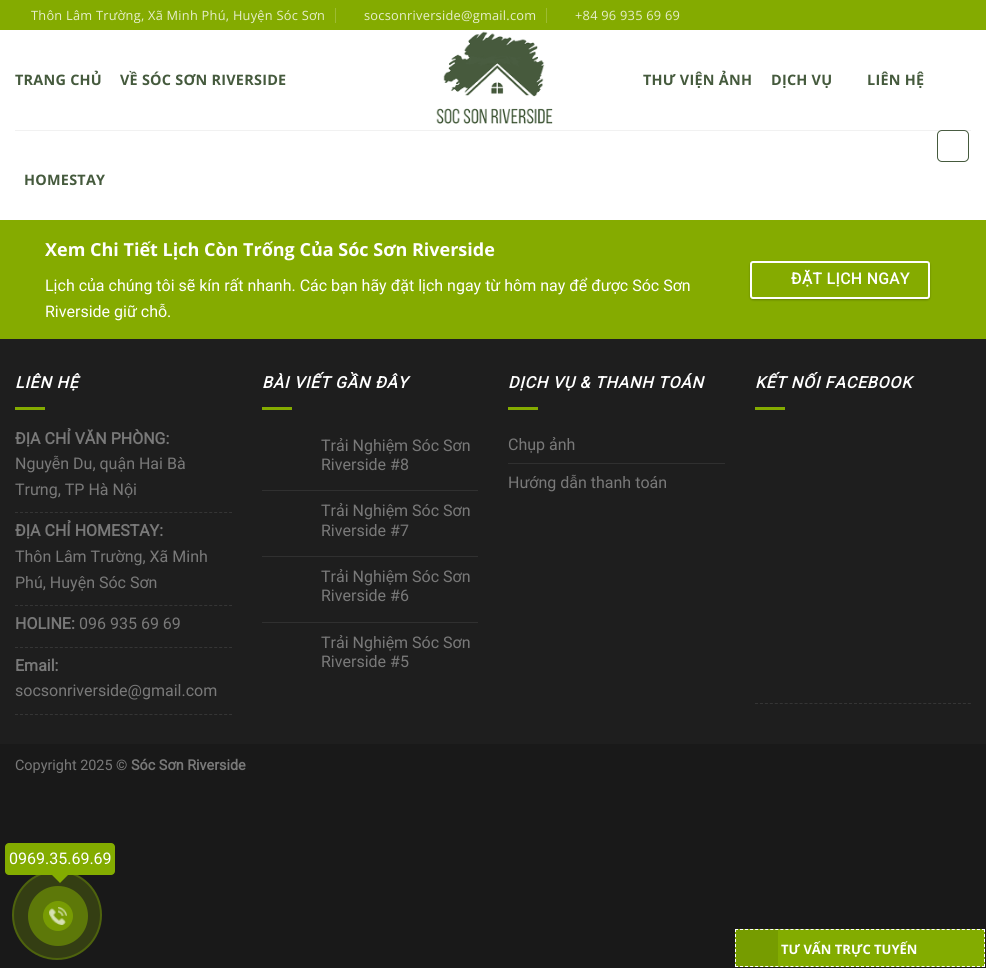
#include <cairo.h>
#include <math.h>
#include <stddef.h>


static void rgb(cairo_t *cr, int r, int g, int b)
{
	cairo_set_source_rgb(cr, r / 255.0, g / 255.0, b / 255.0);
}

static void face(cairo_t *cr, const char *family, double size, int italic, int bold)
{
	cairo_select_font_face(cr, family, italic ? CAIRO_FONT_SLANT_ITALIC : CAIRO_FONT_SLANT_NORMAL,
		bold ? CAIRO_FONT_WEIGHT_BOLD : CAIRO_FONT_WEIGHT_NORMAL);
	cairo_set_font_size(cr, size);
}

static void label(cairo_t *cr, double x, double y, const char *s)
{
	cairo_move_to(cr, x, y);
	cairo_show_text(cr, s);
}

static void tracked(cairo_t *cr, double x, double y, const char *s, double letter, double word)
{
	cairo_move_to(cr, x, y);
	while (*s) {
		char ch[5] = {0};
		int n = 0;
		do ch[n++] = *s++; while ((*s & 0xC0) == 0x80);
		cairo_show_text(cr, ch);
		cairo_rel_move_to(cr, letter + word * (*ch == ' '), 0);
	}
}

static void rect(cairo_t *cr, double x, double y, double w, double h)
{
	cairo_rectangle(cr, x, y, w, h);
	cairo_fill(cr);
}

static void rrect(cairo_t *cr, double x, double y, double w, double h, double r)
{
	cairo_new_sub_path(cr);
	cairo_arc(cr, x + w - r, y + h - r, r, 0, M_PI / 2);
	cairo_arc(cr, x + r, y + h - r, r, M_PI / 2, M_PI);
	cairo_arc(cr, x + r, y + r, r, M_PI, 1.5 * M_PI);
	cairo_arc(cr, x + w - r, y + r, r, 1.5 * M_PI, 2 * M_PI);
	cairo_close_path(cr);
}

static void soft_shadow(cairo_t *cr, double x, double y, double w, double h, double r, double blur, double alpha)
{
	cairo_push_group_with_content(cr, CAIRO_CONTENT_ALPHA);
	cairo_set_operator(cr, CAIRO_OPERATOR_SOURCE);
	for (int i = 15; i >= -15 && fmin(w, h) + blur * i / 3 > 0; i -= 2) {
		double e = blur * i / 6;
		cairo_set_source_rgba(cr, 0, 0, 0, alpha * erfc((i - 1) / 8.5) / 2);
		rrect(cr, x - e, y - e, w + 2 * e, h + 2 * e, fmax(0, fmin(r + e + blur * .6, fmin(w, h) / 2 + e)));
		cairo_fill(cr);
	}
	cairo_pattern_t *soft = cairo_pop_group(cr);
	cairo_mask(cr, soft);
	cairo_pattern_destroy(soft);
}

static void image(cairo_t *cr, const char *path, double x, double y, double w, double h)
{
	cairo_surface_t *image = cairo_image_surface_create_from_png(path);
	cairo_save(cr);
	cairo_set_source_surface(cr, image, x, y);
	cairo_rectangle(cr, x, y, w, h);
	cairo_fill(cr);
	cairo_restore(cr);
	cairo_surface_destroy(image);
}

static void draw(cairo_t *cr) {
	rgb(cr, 25, 25, 25);
	cairo_paint(cr);
	rgb(cr, 255, 255, 255);
	rect(cr, 0, 30, 986, 190);
	rgb(cr, 132, 171, 0);
	rect(cr, 0, 0, 986, 30);
	face(cr, "Open Sans", 12.8, 0, 0);
	rgb(cr, 230, 238, 204);
	tracked(cr, 31, 20, "Thôn Lâm Trường, Xã Minh Phú, Huyện Sóc Sơn", 0.25, 0);
	rgb(cr, 157, 188, 51);
	rect(cr, 335, 8, 1, 15);
	rgb(cr, 230, 238, 204);
	tracked(cr, 364, 20, "socsonriverside@gmail.com", 0.25, 0);
	rgb(cr, 157, 188, 51);
	rect(cr, 546, 8, 1, 15);
	rgb(cr, 230, 238, 204);
	tracked(cr, 575, 20, "+84 96 935 69 69", 0.25, 0);
	face(cr, "Open Sans", 14.4, 0, 1);
	rgb(cr, 69, 90, 61);
	tracked(cr, 15, 85, "TRANG CHỦ", 0.25, 0);
	tracked(cr, 120, 85, "VỀ SÓC SƠN RIVERSIDE", 0.25, 0);
	tracked(cr, 24, 185, "HOMESTAY", 0.25, 0);
	image(cr, "image0.png", 436, 31, 117, 93);
	tracked(cr, 643, 85, "THƯ VIỆN ẢNH", 0.25, 0);
	tracked(cr, 771, 85, "DỊCH VỤ", 0.25, 0);
	tracked(cr, 867, 85, "LIÊN HỆ", 0.25, 0);
	rrect(cr, 937.5, 130.5, 31, 31, 4.5);
	cairo_set_line_width(cr, 1);
	cairo_stroke(cr);
	cairo_set_source_rgba(cr, 0.467, 0.467, 0.467, 0.1);
	rect(cr, 15, 130, 956, 1);
	rgb(cr, 133, 171, 0);
	rect(cr, 0, 220, 986, 119);
	face(cr, "Open Sans", 18, 0, 1);
	rgb(cr, 255, 255, 255);
	label(cr, 45, 256, "Xem Chi Tiết Lịch Còn Trống Của Sóc Sơn Riverside");
	face(cr, "Roboto", 16, 0, 0);
	label(cr, 45, 291, "Lịch của chúng tôi sẽ kín rất nhanh. Các bạn hãy đặt lịch ngay từ hôm nay để được Sóc Sơn");
	label(cr, 45, 317, "Riverside giữ chỗ.");
	cairo_save(cr);
	cairo_set_fill_rule(cr, CAIRO_FILL_RULE_EVEN_ODD);
	cairo_new_path(cr);
	cairo_move_to(cr, 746, 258);
	cairo_line_to(cr, 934, 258);
	cairo_line_to(cr, 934, 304);
	cairo_line_to(cr, 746, 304);
	cairo_close_path(cr);
	cairo_move_to(cr, 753, 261);
	cairo_line_to(cr, 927, 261);
	cairo_curve_to(cr, 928.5, 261, 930, 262.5, 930, 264);
	cairo_line_to(cr, 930, 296);
	cairo_curve_to(cr, 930, 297.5, 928.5, 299, 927, 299);
	cairo_line_to(cr, 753, 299);
	cairo_curve_to(cr, 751.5, 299, 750, 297.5, 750, 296);
	cairo_line_to(cr, 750, 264);
	cairo_curve_to(cr, 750, 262.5, 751.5, 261, 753, 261);
	cairo_close_path(cr);
	cairo_clip(cr);
	rgb(cr, 0, 0, 0);
	soft_shadow(cr, 750, 262, 180, 38, 3, 1, 0.24);
	cairo_restore(cr);
	rrect(cr, 751, 262, 178, 36, 2);
	cairo_set_line_width(cr, 2);
	cairo_stroke(cr);
	face(cr, "Roboto", 15.5, 0, 1);
	tracked(cr, 791, 284, "ĐẶT LỊCH NGAY", 0.5, 0);
	rgb(cr, 30, 30, 30);
	rect(cr, 0, 339, 986, 405);
	face(cr, "Roboto", 16, 1, 1);
	rgb(cr, 255, 255, 255);
	tracked(cr, 15, 388, "LIÊN HỆ", 0.8, 0);
	rgb(cr, 132, 171, 0);
	rect(cr, 15, 407, 30, 3);
	cairo_new_path(cr);
	cairo_move_to(cr, 15, 512.5);
	cairo_line_to(cr, 232, 512.5);
	rgb(cr, 53, 53, 53);
	cairo_set_line_width(cr, 1);
	cairo_set_dash(cr, (double[]){3, 1.98}, 2, 0);
	cairo_stroke(cr);
	face(cr, "Roboto", 16, 0, 1);
	rgb(cr, 121, 121, 121);
	label(cr, 15, 444, "ĐỊA CHỈ VĂN PHÒNG:");
	face(cr, "Roboto", 16, 0, 0);
	label(cr, 15, 469, "Nguyễn Du, quận Hai Bà");
	label(cr, 15, 495, "Trưng, TP Hà Nội");
	cairo_new_path(cr);
	cairo_move_to(cr, 15, 605.5);
	cairo_line_to(cr, 232, 605.5);
	rgb(cr, 53, 53, 53);
	cairo_stroke(cr);
	face(cr, "Roboto", 16, 0, 1);
	rgb(cr, 121, 121, 121);
	label(cr, 15, 536, "ĐỊA CHỈ HOMESTAY:");
	face(cr, "Roboto", 16, 0, 0);
	label(cr, 15, 562, "Thôn Lâm Trường, Xã Minh");
	label(cr, 15, 588, "Phú, Huyện Sóc Sơn");
	cairo_new_path(cr);
	cairo_move_to(cr, 15, 647.5);
	cairo_line_to(cr, 232, 647.5);
	rgb(cr, 53, 53, 53);
	cairo_stroke(cr);
	face(cr, "Roboto", 16, 0, 1);
	rgb(cr, 121, 121, 121);
	label(cr, 15, 629, "HOLINE:");
	face(cr, "Roboto", 16, 0, 0);
	label(cr, 79, 629, "096 935 69 69");
	cairo_new_path(cr);
	cairo_move_to(cr, 15, 714.5);
	cairo_line_to(cr, 232, 714.5);
	rgb(cr, 53, 53, 53);
	cairo_stroke(cr);
	face(cr, "Roboto", 16, 0, 1);
	rgb(cr, 121, 121, 121);
	label(cr, 15, 671, "Email:");
	face(cr, "Roboto", 16, 0, 0);
	label(cr, 15, 696, "socsonriverside@gmail.com");
	face(cr, "Roboto", 16, 1, 1);
	rgb(cr, 255, 255, 255);
	tracked(cr, 262, 388, "BÀI VIẾT GẦN ĐÂY", 0.8, 0);
	rgb(cr, 132, 171, 0);
	rect(cr, 262, 407, 30, 3);
	face(cr, "Roboto", 16, 0, 0);
	rgb(cr, 121, 121, 121);
	label(cr, 321, 451, "Trải Nghiệm Sóc Sơn");
	label(cr, 321, 470, "Riverside #8");
	rgb(cr, 48, 48, 48);
	rect(cr, 262, 490, 216, 1);
	rgb(cr, 121, 121, 121);
	label(cr, 321, 516, "Trải Nghiệm Sóc Sơn");
	label(cr, 321, 536, "Riverside #7");
	rgb(cr, 48, 48, 48);
	rect(cr, 262, 556, 216, 1);
	rgb(cr, 121, 121, 121);
	label(cr, 321, 582, "Trải Nghiệm Sóc Sơn");
	label(cr, 321, 601, "Riverside #6");
	rgb(cr, 48, 48, 48);
	rect(cr, 262, 622, 216, 1);
	rgb(cr, 121, 121, 121);
	label(cr, 321, 648, "Trải Nghiệm Sóc Sơn");
	label(cr, 321, 667, "Riverside #5");
	face(cr, "Roboto", 16, 1, 1);
	rgb(cr, 255, 255, 255);
	tracked(cr, 508, 388, "DỊCH VỤ & THANH TOÁN", 0.8, 0);
	rgb(cr, 132, 171, 0);
	rect(cr, 508, 407, 30, 3);
	face(cr, "Roboto", 16, 0, 0);
	rgb(cr, 121, 121, 121);
	label(cr, 508, 450, "Chụp ảnh");
	rgb(cr, 48, 48, 48);
	rect(cr, 508, 463, 217, 1);
	rgb(cr, 121, 121, 121);
	label(cr, 508, 488, "Hướng dẫn thanh toán");
	face(cr, "Roboto", 16, 1, 1);
	rgb(cr, 255, 255, 255);
	tracked(cr, 755, 388, "KẾT NỐI FACEBOOK", 0.8, 0);
	rgb(cr, 132, 171, 0);
	rect(cr, 755, 407, 30, 3);
	cairo_new_path(cr);
	cairo_move_to(cr, 755, 703.5);
	cairo_line_to(cr, 971, 703.5);
	rgb(cr, 53, 53, 53);
	cairo_set_dash(cr, (double[]){3, 1.95}, 2, 0);
	cairo_stroke(cr);
	face(cr, "Roboto", 14.4, 0, 0);
	rgb(cr, 121, 121, 121);
	label(cr, 15, 770, "Copyright 2025 ©");
	face(cr, "Roboto", 14.4, 0, 1);
	label(cr, 131, 770, "Sóc Sơn Riverside");
	rgb(cr, 52, 62, 19);
	cairo_new_path(cr);
	cairo_arc(cr, 57, 915, 44, 0, 2 * M_PI);
	cairo_fill_preserve(cr);
	rgb(cr, 78, 99, 13);
	cairo_set_line_width(cr, 2);
	cairo_set_dash(cr, NULL, 0, 0);
	cairo_stroke(cr);
	rgb(cr, 131, 172, 0);
	rrect(cr, 5, 843, 110, 32, 4);
	cairo_fill(cr);
	face(cr, "Roboto", 16, 0, 0);
	rgb(cr, 255, 255, 255);
	label(cr, 9, 864, "0969.35.69.69");
	rgb(cr, 131, 172, 0);
	cairo_new_path(cr);
	cairo_move_to(cr, 50, 873);
	cairo_line_to(cr, 70, 873);
	cairo_line_to(cr, 60, 883);
	cairo_close_path(cr);
	cairo_fill(cr);
	rgb(cr, 93, 120, 9);
	cairo_arc(cr, 58, 916, 30, 0, 2 * M_PI);
	cairo_fill(cr);
	rgb(cr, 120, 156, 3);
	cairo_arc(cr, 58, 916, 15, 0, 2 * M_PI);
	cairo_fill(cr);
	image(cr, "image1.png", 49, 907, 18, 18);
	rgb(cr, 131, 172, 0);
	rect(cr, 735, 929, 250, 38);
	cairo_new_path(cr);
	cairo_move_to(cr, 735, 929.5);
	cairo_line_to(cr, 985, 929.5);
	rgb(cr, 255, 255, 255);
	cairo_set_line_width(cr, 1);
	cairo_set_dash(cr, (double[]){3, 2.04}, 2, 0);
	cairo_stroke(cr);
	cairo_new_path(cr);
	cairo_move_to(cr, 984.5, 929);
	cairo_line_to(cr, 984.5, 967);
	cairo_set_dash(cr, (double[]){3, 2}, 2, 0);
	cairo_stroke(cr);
	cairo_new_path(cr);
	cairo_move_to(cr, 735, 966.5);
	cairo_line_to(cr, 985, 966.5);
	cairo_set_dash(cr, (double[]){3, 2.04}, 2, 0);
	cairo_stroke(cr);
	cairo_new_path(cr);
	cairo_move_to(cr, 735.5, 929);
	cairo_line_to(cr, 735.5, 967);
	cairo_set_dash(cr, (double[]){3, 2}, 2, 0);
	cairo_stroke(cr);
	rgb(cr, 118, 156, 0);
	rect(cr, 736, 930, 42, 36);
	face(cr, "Open Sans", 13, 0, 1);
	rgb(cr, 255, 255, 255);
	label(cr, 781, 954, "TƯ VẤN TRỰC TUYẾN");
}

int main(void) {
	cairo_surface_t *surface = cairo_image_surface_create(CAIRO_FORMAT_RGB24, 986, 968);
	cairo_t *cr = cairo_create(surface);
	cairo_font_options_t *options = cairo_font_options_create();
	cairo_font_options_set_hint_metrics(options, CAIRO_HINT_METRICS_OFF);
	cairo_font_options_set_hint_style(options, CAIRO_HINT_STYLE_NONE);
	cairo_set_font_options(cr, options);
	cairo_set_miter_limit(cr, 4);
	draw(cr);
	cairo_surface_write_to_png(surface, "render.png");
	cairo_font_options_destroy(options);
	cairo_destroy(cr);
	cairo_surface_destroy(surface);
	return 0;
}
